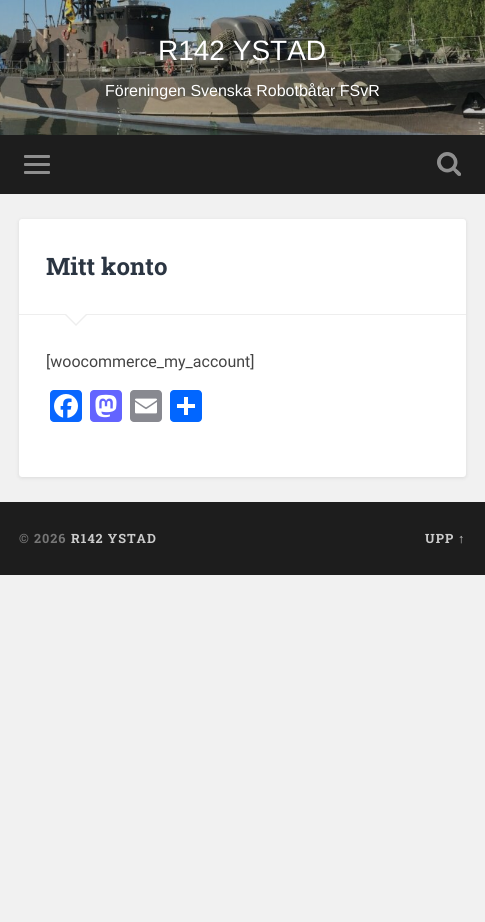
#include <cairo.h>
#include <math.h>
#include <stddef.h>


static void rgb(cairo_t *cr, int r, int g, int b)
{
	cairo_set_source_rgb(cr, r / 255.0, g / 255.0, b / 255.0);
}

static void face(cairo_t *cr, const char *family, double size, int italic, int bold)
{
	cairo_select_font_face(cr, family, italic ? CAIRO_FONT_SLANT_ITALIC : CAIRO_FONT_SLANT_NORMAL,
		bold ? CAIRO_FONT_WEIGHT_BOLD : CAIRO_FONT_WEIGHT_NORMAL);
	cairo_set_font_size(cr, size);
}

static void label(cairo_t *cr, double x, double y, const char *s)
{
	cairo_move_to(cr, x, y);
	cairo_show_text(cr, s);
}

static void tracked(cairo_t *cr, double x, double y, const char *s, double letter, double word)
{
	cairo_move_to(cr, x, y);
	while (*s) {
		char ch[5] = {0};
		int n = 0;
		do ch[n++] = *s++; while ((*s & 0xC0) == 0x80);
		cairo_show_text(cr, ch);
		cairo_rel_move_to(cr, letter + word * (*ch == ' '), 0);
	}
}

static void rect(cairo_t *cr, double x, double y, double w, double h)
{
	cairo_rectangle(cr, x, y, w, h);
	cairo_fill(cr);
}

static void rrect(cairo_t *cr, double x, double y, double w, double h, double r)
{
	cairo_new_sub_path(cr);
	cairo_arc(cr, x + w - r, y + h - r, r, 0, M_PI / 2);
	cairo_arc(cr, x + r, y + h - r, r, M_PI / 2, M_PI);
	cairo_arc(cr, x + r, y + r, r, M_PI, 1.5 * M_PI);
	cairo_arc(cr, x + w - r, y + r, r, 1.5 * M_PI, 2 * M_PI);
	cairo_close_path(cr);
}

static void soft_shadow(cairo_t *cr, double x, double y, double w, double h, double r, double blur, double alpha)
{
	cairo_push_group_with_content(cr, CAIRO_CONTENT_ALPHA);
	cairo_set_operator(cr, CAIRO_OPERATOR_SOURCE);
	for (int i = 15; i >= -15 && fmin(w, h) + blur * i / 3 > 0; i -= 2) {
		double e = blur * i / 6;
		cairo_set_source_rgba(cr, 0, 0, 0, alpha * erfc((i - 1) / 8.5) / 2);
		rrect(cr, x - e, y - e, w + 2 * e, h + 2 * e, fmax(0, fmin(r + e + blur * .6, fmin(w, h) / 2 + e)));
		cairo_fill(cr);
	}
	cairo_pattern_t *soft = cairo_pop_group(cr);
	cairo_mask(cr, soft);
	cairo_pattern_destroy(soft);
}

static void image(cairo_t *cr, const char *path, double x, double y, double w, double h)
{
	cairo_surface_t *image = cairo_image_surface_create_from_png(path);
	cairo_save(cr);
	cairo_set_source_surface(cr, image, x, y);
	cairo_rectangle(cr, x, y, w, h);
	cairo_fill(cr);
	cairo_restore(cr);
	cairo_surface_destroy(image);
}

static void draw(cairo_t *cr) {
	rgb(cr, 241, 241, 241);
	cairo_paint(cr);
	image(cr, "image0.png", 0, 0, 485, 135);
	face(cr, "Liberation Sans", 28, 0, 0);
	rgb(cr, 255, 255, 255);
	label(cr, 158, 60, "R142 YSTAD");
	face(cr, "Liberation Sans", 16, 0, 0);
	label(cr, 105, 96, "Föreningen Svenska Robotbåtar FSvR");
	rgb(cr, 29, 29, 29);
	rect(cr, 0, 135, 485, 59);
	rgb(cr, 142, 142, 142);
	rrect(cr, 24, 155, 26, 3, 1);
	cairo_fill(cr);
	rrect(cr, 24, 163, 26, 3, 1);
	cairo_fill(cr);
	rrect(cr, 24, 171, 26, 3, 1);
	cairo_fill(cr);
	image(cr, "image1.png", 437, 152, 24, 24);
	rgb(cr, 0, 0, 0);
	soft_shadow(cr, 19, 220, 447, 258, 3, 2, 0.1);
	rgb(cr, 255, 255, 255);
	rrect(cr, 19, 219, 447, 258, 3);
	cairo_fill(cr);
	rgb(cr, 238, 238, 238);
	rect(cr, 19, 314, 447, 1);
	face(cr, "Roboto Slab", 24, 0, 1);
	rgb(cr, 43, 53, 66);
	label(cr, 46, 275, "Mitt konto");
	rgb(cr, 238, 238, 238);
	cairo_new_path(cr);
	cairo_move_to(cr, 64, 314);
	cairo_line_to(cr, 88, 314);
	cairo_line_to(cr, 76, 326);
	cairo_close_path(cr);
	cairo_fill(cr);
	rgb(cr, 255, 255, 255);
	cairo_new_path(cr);
	cairo_move_to(cr, 65, 313);
	cairo_line_to(cr, 87, 313);
	cairo_line_to(cr, 76, 324);
	cairo_close_path(cr);
	cairo_fill(cr);
	face(cr, "Roboto", 16, 0, 0);
	rgb(cr, 68, 68, 68);
	label(cr, 46, 367, "[woocommerce_my_account]");
	rgb(cr, 8, 102, 255);
	rrect(cr, 50, 390, 32, 32, 4);
	cairo_fill(cr);
	image(cr, "image2.png", 54, 394, 24, 24);
	rgb(cr, 99, 100, 255);
	rrect(cr, 90, 390, 32, 32, 4);
	cairo_fill(cr);
	image(cr, "image3.png", 95, 394, 22, 24);
	rgb(cr, 136, 137, 144);
	rrect(cr, 130, 390, 32, 32, 4);
	cairo_fill(cr);
	image(cr, "image4.png", 135, 398, 22, 16);
	rgb(cr, 1, 102, 255);
	rrect(cr, 170, 390, 32, 32, 4);
	cairo_fill(cr);
	rgb(cr, 255, 255, 255);
	rect(cr, 184, 397, 4, 18);
	rect(cr, 177, 404, 18, 4);
	rgb(cr, 29, 29, 29);
	rect(cr, 0, 502, 485, 73);
	face(cr, "Roboto Slab", 12.75, 0, 1);
	rgb(cr, 118, 118, 118);
	tracked(cr, 19, 543, "© 2026", 1, 0);
	rgb(cr, 204, 204, 204);
	tracked(cr, 71, 543, "R142 YSTAD", 1, 0);
	tracked(cr, 425, 543, "UPP", 1, 0);
	face(cr, "Liberation Sans", 12.75, 0, 1);
	tracked(cr, 458, 543, "↑", 1, 0);
}

int main(void) {
	cairo_surface_t *surface = cairo_image_surface_create(CAIRO_FORMAT_RGB24, 485, 922);
	cairo_t *cr = cairo_create(surface);
	cairo_font_options_t *options = cairo_font_options_create();
	cairo_font_options_set_hint_metrics(options, CAIRO_HINT_METRICS_OFF);
	cairo_font_options_set_hint_style(options, CAIRO_HINT_STYLE_NONE);
	cairo_set_font_options(cr, options);
	cairo_set_miter_limit(cr, 4);
	draw(cr);
	cairo_surface_write_to_png(surface, "render.png");
	cairo_font_options_destroy(options);
	cairo_destroy(cr);
	cairo_surface_destroy(surface);
	return 0;
}
